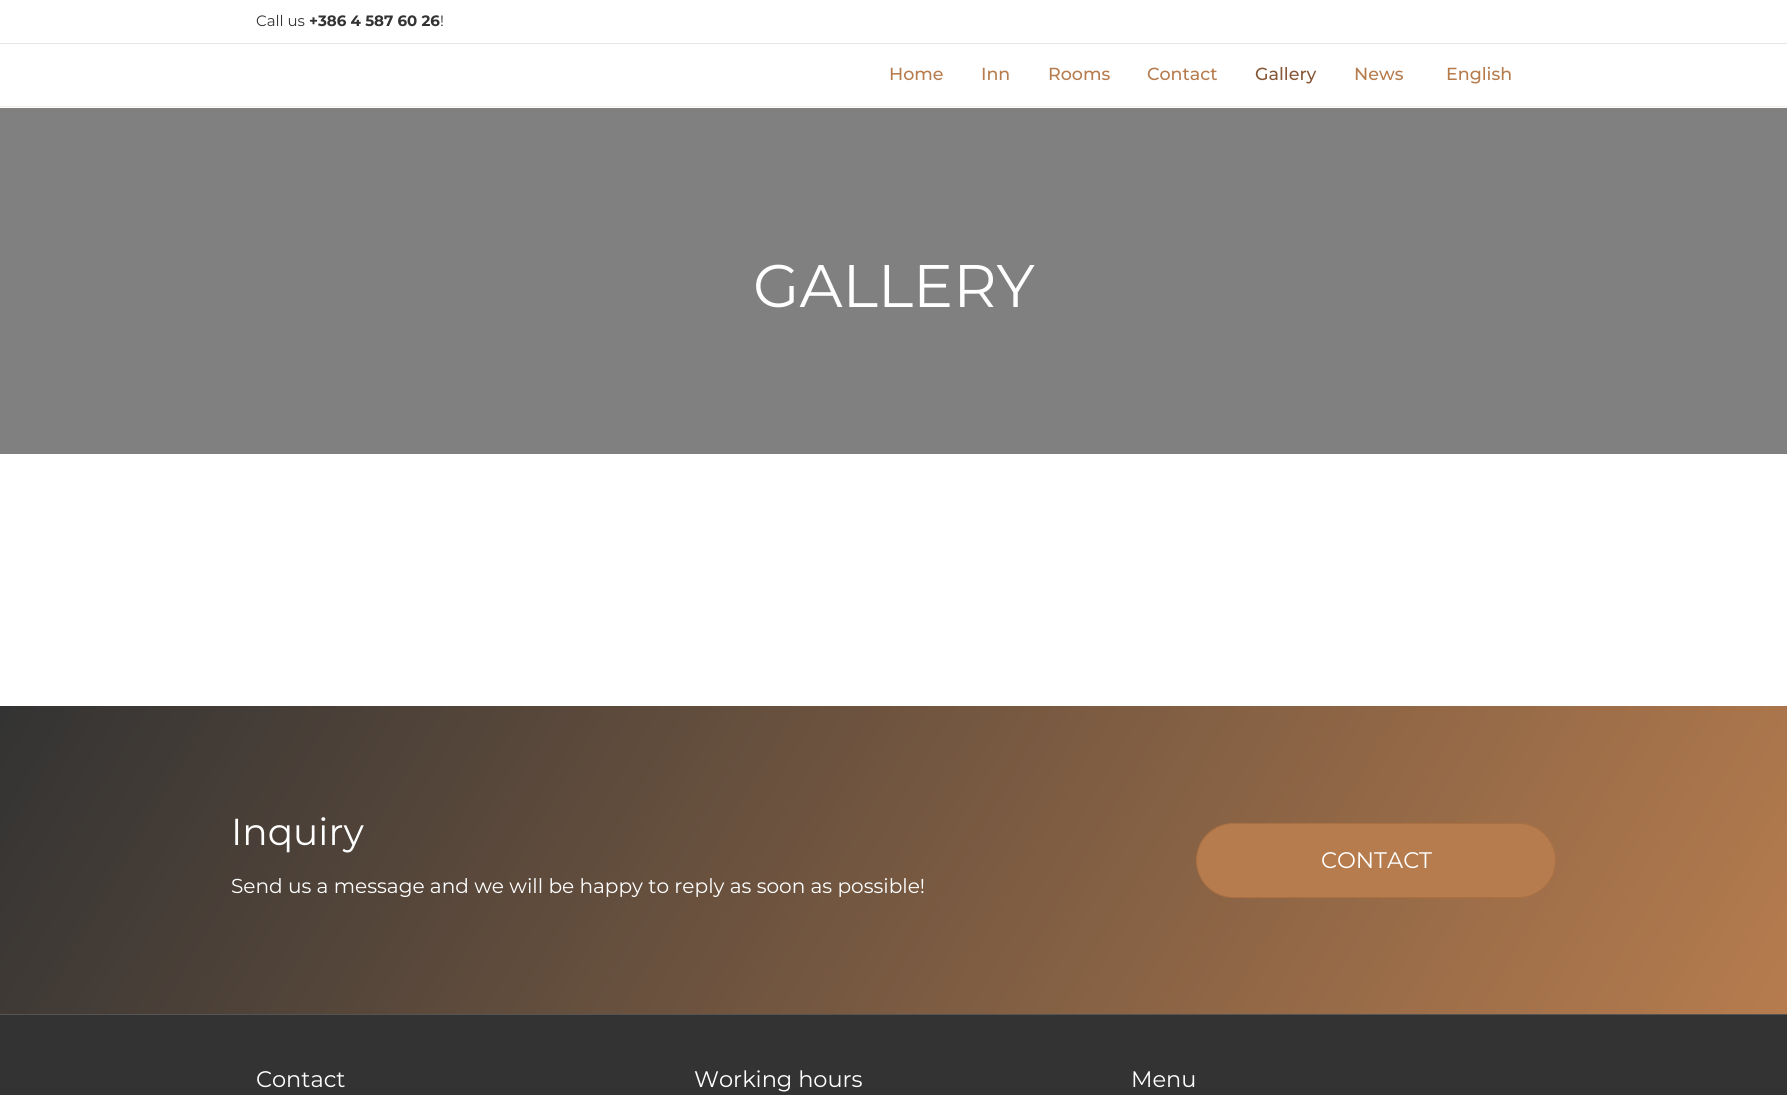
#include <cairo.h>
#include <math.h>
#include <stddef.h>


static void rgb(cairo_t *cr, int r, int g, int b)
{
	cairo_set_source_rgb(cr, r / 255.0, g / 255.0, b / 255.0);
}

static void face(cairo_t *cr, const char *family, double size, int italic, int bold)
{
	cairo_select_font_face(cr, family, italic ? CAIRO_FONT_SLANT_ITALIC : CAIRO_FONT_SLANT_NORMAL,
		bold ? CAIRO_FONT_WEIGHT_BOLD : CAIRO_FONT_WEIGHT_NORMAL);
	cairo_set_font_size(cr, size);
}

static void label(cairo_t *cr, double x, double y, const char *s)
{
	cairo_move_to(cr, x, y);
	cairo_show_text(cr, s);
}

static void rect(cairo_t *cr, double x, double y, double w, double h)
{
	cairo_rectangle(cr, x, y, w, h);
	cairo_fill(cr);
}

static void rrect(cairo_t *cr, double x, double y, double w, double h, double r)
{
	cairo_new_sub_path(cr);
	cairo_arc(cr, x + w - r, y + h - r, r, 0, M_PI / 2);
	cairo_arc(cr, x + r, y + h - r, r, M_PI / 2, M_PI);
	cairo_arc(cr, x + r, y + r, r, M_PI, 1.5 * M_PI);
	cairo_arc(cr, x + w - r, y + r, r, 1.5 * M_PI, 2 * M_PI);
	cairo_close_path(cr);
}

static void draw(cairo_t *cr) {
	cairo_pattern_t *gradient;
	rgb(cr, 255, 255, 255);
	cairo_paint(cr);
	rgb(cr, 230, 230, 230);
	rect(cr, 0, 43, 1787, 1);
	face(cr, "Montserrat", 15, 0, 0);
	rgb(cr, 51, 51, 51);
	label(cr, 256, 26, "Call us");
	face(cr, "Montserrat", 15, 0, 1);
	label(cr, 309, 26, "+386 4 587 60 26");
	face(cr, "Montserrat", 15, 0, 0);
	label(cr, 440, 26, "!");
	rgb(cr, 246, 238, 232);
	rect(cr, 0, 106, 1787, 1);
	face(cr, "Montserrat Medium", 17.5, 0, 0);
	rgb(cr, 182, 124, 78);
	label(cr, 889, 80, "Home");
	label(cr, 981, 80, "Inn");
	label(cr, 1048, 80, "Rooms");
	label(cr, 1147, 80, "Contact");
	rgb(cr, 135, 88, 55);
	label(cr, 1255, 80, "Gallery");
	rgb(cr, 182, 124, 78);
	label(cr, 1354, 80, "News");
	label(cr, 1446, 80, "English");
	rgb(cr, 128, 128, 128);
	rect(cr, 0, 108, 1787, 346);
	face(cr, "Montserrat", 60, 0, 0);
	rgb(cr, 255, 255, 255);
	label(cr, 753, 307, "GALLERY");
	gradient = cairo_pattern_create_linear(157, 435, 1631, 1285);
	cairo_pattern_add_color_stop_rgba(gradient, 0, 0.2, 0.2, 0.2, 1);
	cairo_pattern_add_color_stop_rgba(gradient, 1, 0.714, 0.486, 0.306, 1);
	cairo_set_source(cr, gradient);
	cairo_pattern_destroy(gradient);
	rect(cr, 0, 706, 1787, 308);
	face(cr, "Montserrat", 37.5, 0, 0);
	rgb(cr, 255, 255, 255);
	label(cr, 231, 845, "Inquiry");
	face(cr, "Montserrat", 20.1, 0, 0);
	label(cr, 231, 893, "Send us a message and we will be happy to reply as soon as possible!");
	rgb(cr, 182, 124, 78);
	rrect(cr, 1196.5, 823.5, 359, 74, 37);
	cairo_fill_preserve(cr);
	rgb(cr, 170, 112, 66);
	cairo_set_line_width(cr, 1);
	cairo_stroke(cr);
	face(cr, "Montserrat", 22.5, 0, 0);
	rgb(cr, 255, 255, 255);
	label(cr, 1321, 868, "CONTACT");
	rgb(cr, 51, 51, 51);
	rect(cr, 0, 1015, 1787, 80);
	rgb(cr, 84, 84, 84);
	rect(cr, 0, 1014, 1787, 1);
	rgb(cr, 255, 255, 255);
	label(cr, 256, 1087, "Contact");
	label(cr, 694, 1087, "Working hours");
	label(cr, 1131, 1087, "Menu");
}

int main(void) {
	cairo_surface_t *surface = cairo_image_surface_create(CAIRO_FORMAT_RGB24, 1787, 1095);
	cairo_t *cr = cairo_create(surface);
	cairo_font_options_t *options = cairo_font_options_create();
	cairo_font_options_set_hint_metrics(options, CAIRO_HINT_METRICS_OFF);
	cairo_font_options_set_hint_style(options, CAIRO_HINT_STYLE_NONE);
	cairo_set_font_options(cr, options);
	cairo_set_miter_limit(cr, 4);
	draw(cr);
	cairo_surface_write_to_png(surface, "render.png");
	cairo_font_options_destroy(options);
	cairo_destroy(cr);
	cairo_surface_destroy(surface);
	return 0;
}
